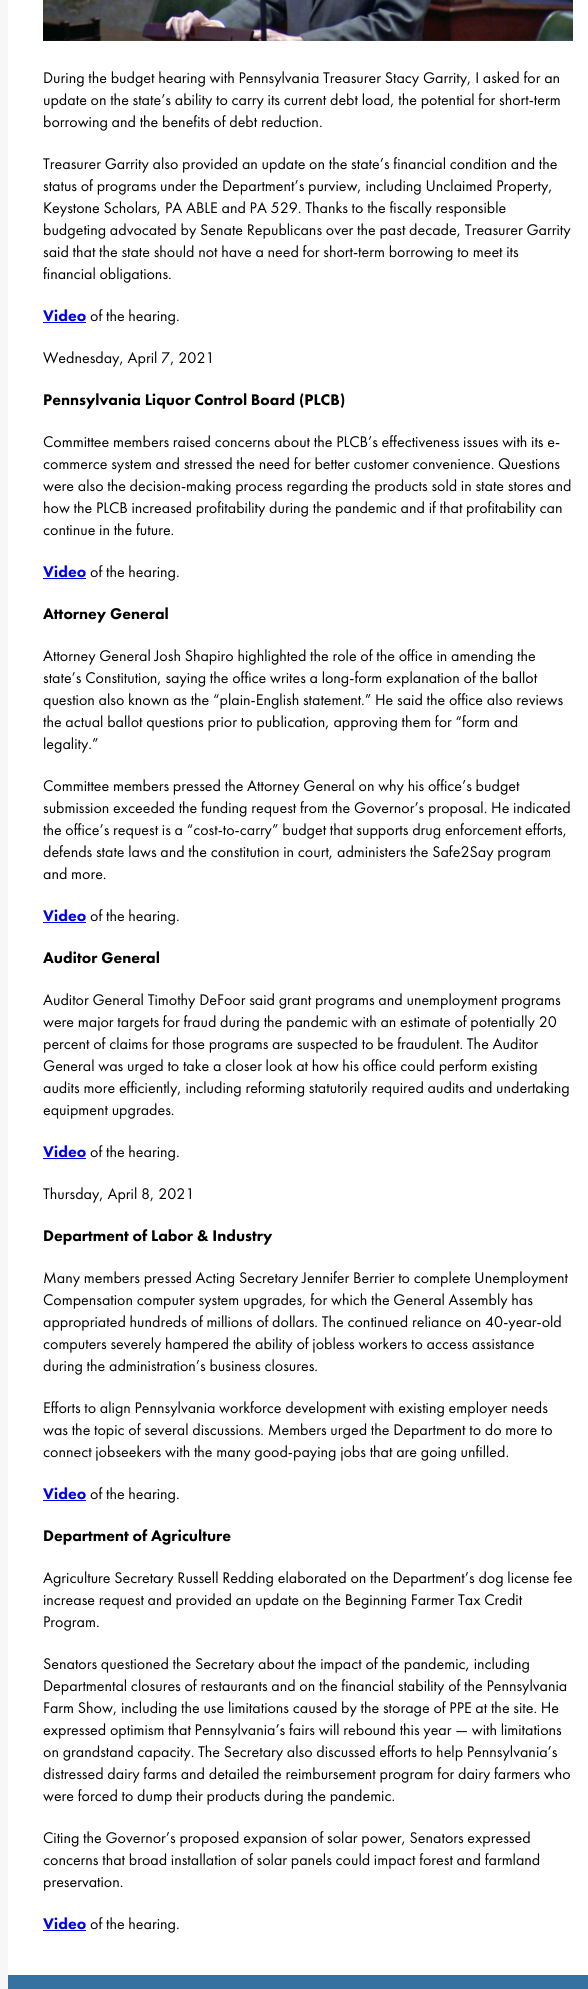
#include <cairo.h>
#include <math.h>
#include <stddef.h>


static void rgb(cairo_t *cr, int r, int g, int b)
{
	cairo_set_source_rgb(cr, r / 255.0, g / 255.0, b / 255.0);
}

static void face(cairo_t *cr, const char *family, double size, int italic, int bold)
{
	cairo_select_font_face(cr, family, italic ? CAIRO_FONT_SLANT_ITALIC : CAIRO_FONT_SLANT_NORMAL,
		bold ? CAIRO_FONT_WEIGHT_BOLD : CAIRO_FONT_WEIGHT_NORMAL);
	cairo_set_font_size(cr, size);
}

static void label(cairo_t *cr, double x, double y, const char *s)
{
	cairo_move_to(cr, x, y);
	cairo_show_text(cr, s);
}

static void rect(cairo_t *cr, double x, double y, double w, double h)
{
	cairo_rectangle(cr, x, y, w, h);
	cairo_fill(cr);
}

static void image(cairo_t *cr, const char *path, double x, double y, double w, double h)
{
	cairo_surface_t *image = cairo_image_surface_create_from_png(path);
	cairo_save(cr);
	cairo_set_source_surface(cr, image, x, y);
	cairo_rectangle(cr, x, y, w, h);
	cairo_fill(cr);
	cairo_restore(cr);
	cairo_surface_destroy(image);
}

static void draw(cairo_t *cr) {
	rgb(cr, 247, 247, 247);
	cairo_paint(cr);
	rgb(cr, 255, 255, 255);
	rect(cr, 8, 0, 580, 1975);
	image(cr, "image0.png", 43, 0, 530, 41);
	face(cr, "Futura PT", 16, 0, 0);
	rgb(cr, 0, 0, 0);
	label(cr, 43, 83, "During the budget hearing with Pennsylvania Treasurer Stacy Garrity, I asked for an");
	label(cr, 43, 105, "update on the state’s ability to carry its current debt load, the potential for short-term");
	label(cr, 43, 127, "borrowing and the benefits of debt reduction.");
	label(cr, 43, 169, "Treasurer Garrity also provided an update on the state’s financial condition and the");
	label(cr, 43, 191, "status of programs under the Department’s purview, including Unclaimed Property,");
	label(cr, 43, 213, "Keystone Scholars, PA ABLE and PA 529. Thanks to the fiscally responsible");
	label(cr, 43, 235, "budgeting advocated by Senate Republicans over the past decade, Treasurer Garrity");
	label(cr, 43, 257, "said that the state should not have a need for short-term borrowing to meet its");
	label(cr, 43, 279, "financial obligations.");
	face(cr, "Futura PT Black", 16, 0, 0);
	rgb(cr, 0, 0, 238);
	label(cr, 43, 321, "Video");
	rect(cr, 43, 322, 43, 1);
	face(cr, "Futura PT", 16, 0, 0);
	rgb(cr, 0, 0, 0);
	label(cr, 90, 321, "of the hearing.");
	label(cr, 43, 363, "Wednesday, April 7, 2021");
	face(cr, "Futura PT Black", 16, 0, 0);
	label(cr, 43, 405, "Pennsylvania Liquor Control Board (PLCB)");
	face(cr, "Futura PT", 16, 0, 0);
	label(cr, 43, 447, "Committee members raised concerns about the PLCB’s effectiveness issues with its e-");
	label(cr, 43, 469, "commerce system and stressed the need for better customer convenience. Questions");
	label(cr, 43, 491, "were also the decision-making process regarding the products sold in state stores and");
	label(cr, 43, 513, "how the PLCB increased profitability during the pandemic and if that profitability can");
	label(cr, 43, 535, "continue in the future.");
	face(cr, "Futura PT Black", 16, 0, 0);
	rgb(cr, 0, 0, 238);
	label(cr, 43, 577, "Video");
	rect(cr, 43, 578, 43, 1);
	face(cr, "Futura PT", 16, 0, 0);
	rgb(cr, 0, 0, 0);
	label(cr, 90, 577, "of the hearing.");
	face(cr, "Futura PT Black", 16, 0, 0);
	label(cr, 43, 619, "Attorney General");
	face(cr, "Futura PT", 16, 0, 0);
	label(cr, 43, 661, "Attorney General Josh Shapiro highlighted the role of the office in amending the");
	label(cr, 43, 683, "state’s Constitution, saying the office writes a long-form explanation of the ballot");
	label(cr, 43, 705, "question also known as the “plain-English statement.” He said the office also reviews");
	label(cr, 43, 727, "the actual ballot questions prior to publication, approving them for “form and");
	label(cr, 43, 749, "legality.”");
	label(cr, 43, 791, "Committee members pressed the Attorney General on why his office’s budget");
	label(cr, 43, 813, "submission exceeded the funding request from the Governor’s proposal. He indicated");
	label(cr, 43, 835, "the office’s request is a “cost-to-carry” budget that supports drug enforcement efforts,");
	label(cr, 43, 857, "defends state laws and the constitution in court, administers the Safe2Say program");
	label(cr, 43, 879, "and more.");
	face(cr, "Futura PT Black", 16, 0, 0);
	rgb(cr, 0, 0, 238);
	label(cr, 43, 921, "Video");
	rect(cr, 43, 922, 43, 1);
	face(cr, "Futura PT", 16, 0, 0);
	rgb(cr, 0, 0, 0);
	label(cr, 90, 921, "of the hearing.");
	face(cr, "Futura PT Black", 16, 0, 0);
	label(cr, 43, 963, "Auditor General");
	face(cr, "Futura PT", 16, 0, 0);
	label(cr, 43, 1005, "Auditor General Timothy DeFoor said grant programs and unemployment programs");
	label(cr, 43, 1027, "were major targets for fraud during the pandemic with an estimate of potentially 20");
	label(cr, 43, 1049, "percent of claims for those programs are suspected to be fraudulent. The Auditor");
	label(cr, 43, 1071, "General was urged to take a closer look at how his office could perform existing");
	label(cr, 43, 1093, "audits more efficiently, including reforming statutorily required audits and undertaking");
	label(cr, 43, 1115, "equipment upgrades.");
	face(cr, "Futura PT Black", 16, 0, 0);
	rgb(cr, 0, 0, 238);
	label(cr, 43, 1157, "Video");
	rect(cr, 43, 1158, 43, 1);
	face(cr, "Futura PT", 16, 0, 0);
	rgb(cr, 0, 0, 0);
	label(cr, 90, 1157, "of the hearing.");
	label(cr, 43, 1199, "Thursday, April 8, 2021");
	face(cr, "Futura PT Black", 16, 0, 0);
	label(cr, 43, 1241, "Department of Labor & Industry");
	face(cr, "Futura PT", 16, 0, 0);
	label(cr, 43, 1283, "Many members pressed Acting Secretary Jennifer Berrier to complete Unemployment");
	label(cr, 43, 1305, "Compensation computer system upgrades, for which the General Assembly has");
	label(cr, 43, 1327, "appropriated hundreds of millions of dollars. The continued reliance on 40-year-old");
	label(cr, 43, 1349, "computers severely hampered the ability of jobless workers to access assistance");
	label(cr, 43, 1371, "during the administration’s business closures.");
	label(cr, 43, 1413, "Efforts to align Pennsylvania workforce development with existing employer needs");
	label(cr, 43, 1435, "was the topic of several discussions. Members urged the Department to do more to");
	label(cr, 43, 1457, "connect jobseekers with the many good-paying jobs that are going unfilled.");
	face(cr, "Futura PT Black", 16, 0, 0);
	rgb(cr, 0, 0, 238);
	label(cr, 43, 1499, "Video");
	rect(cr, 43, 1500, 43, 1);
	face(cr, "Futura PT", 16, 0, 0);
	rgb(cr, 0, 0, 0);
	label(cr, 90, 1499, "of the hearing.");
	face(cr, "Futura PT Black", 16, 0, 0);
	label(cr, 43, 1541, "Department of Agriculture");
	face(cr, "Futura PT", 16, 0, 0);
	label(cr, 43, 1583, "Agriculture Secretary Russell Redding elaborated on the Department’s dog license fee");
	label(cr, 43, 1605, "increase request and provided an update on the Beginning Farmer Tax Credit");
	label(cr, 43, 1627, "Program.");
	label(cr, 43, 1669, "Senators questioned the Secretary about the impact of the pandemic, including");
	label(cr, 43, 1691, "Departmental closures of restaurants and on the financial stability of the Pennsylvania");
	label(cr, 43, 1713, "Farm Show, including the use limitations caused by the storage of PPE at the site. He");
	label(cr, 43, 1735, "expressed optimism that Pennsylvania’s fairs will rebound this year — with limitations");
	label(cr, 43, 1757, "on grandstand capacity. The Secretary also discussed efforts to help Pennsylvania’s");
	label(cr, 43, 1779, "distressed dairy farms and detailed the reimbursement program for dairy farmers who");
	label(cr, 43, 1801, "were forced to dump their products during the pandemic.");
	label(cr, 43, 1843, "Citing the Governor’s proposed expansion of solar power, Senators expressed");
	label(cr, 43, 1865, "concerns that broad installation of solar panels could impact forest and farmland");
	label(cr, 43, 1887, "preservation.");
	face(cr, "Futura PT Black", 16, 0, 0);
	rgb(cr, 0, 0, 238);
	label(cr, 43, 1929, "Video");
	rect(cr, 43, 1930, 43, 1);
	face(cr, "Futura PT", 16, 0, 0);
	rgb(cr, 0, 0, 0);
	label(cr, 90, 1929, "of the hearing.");
	rgb(cr, 54, 114, 161);
	rect(cr, 8, 1975, 580, 14);
}

int main(void) {
	cairo_surface_t *surface = cairo_image_surface_create(CAIRO_FORMAT_RGB24, 588, 1989);
	cairo_t *cr = cairo_create(surface);
	cairo_font_options_t *options = cairo_font_options_create();
	cairo_font_options_set_hint_metrics(options, CAIRO_HINT_METRICS_OFF);
	cairo_font_options_set_hint_style(options, CAIRO_HINT_STYLE_NONE);
	cairo_set_font_options(cr, options);
	cairo_set_miter_limit(cr, 4);
	draw(cr);
	cairo_surface_write_to_png(surface, "render.png");
	cairo_font_options_destroy(options);
	cairo_destroy(cr);
	cairo_surface_destroy(surface);
	return 0;
}
